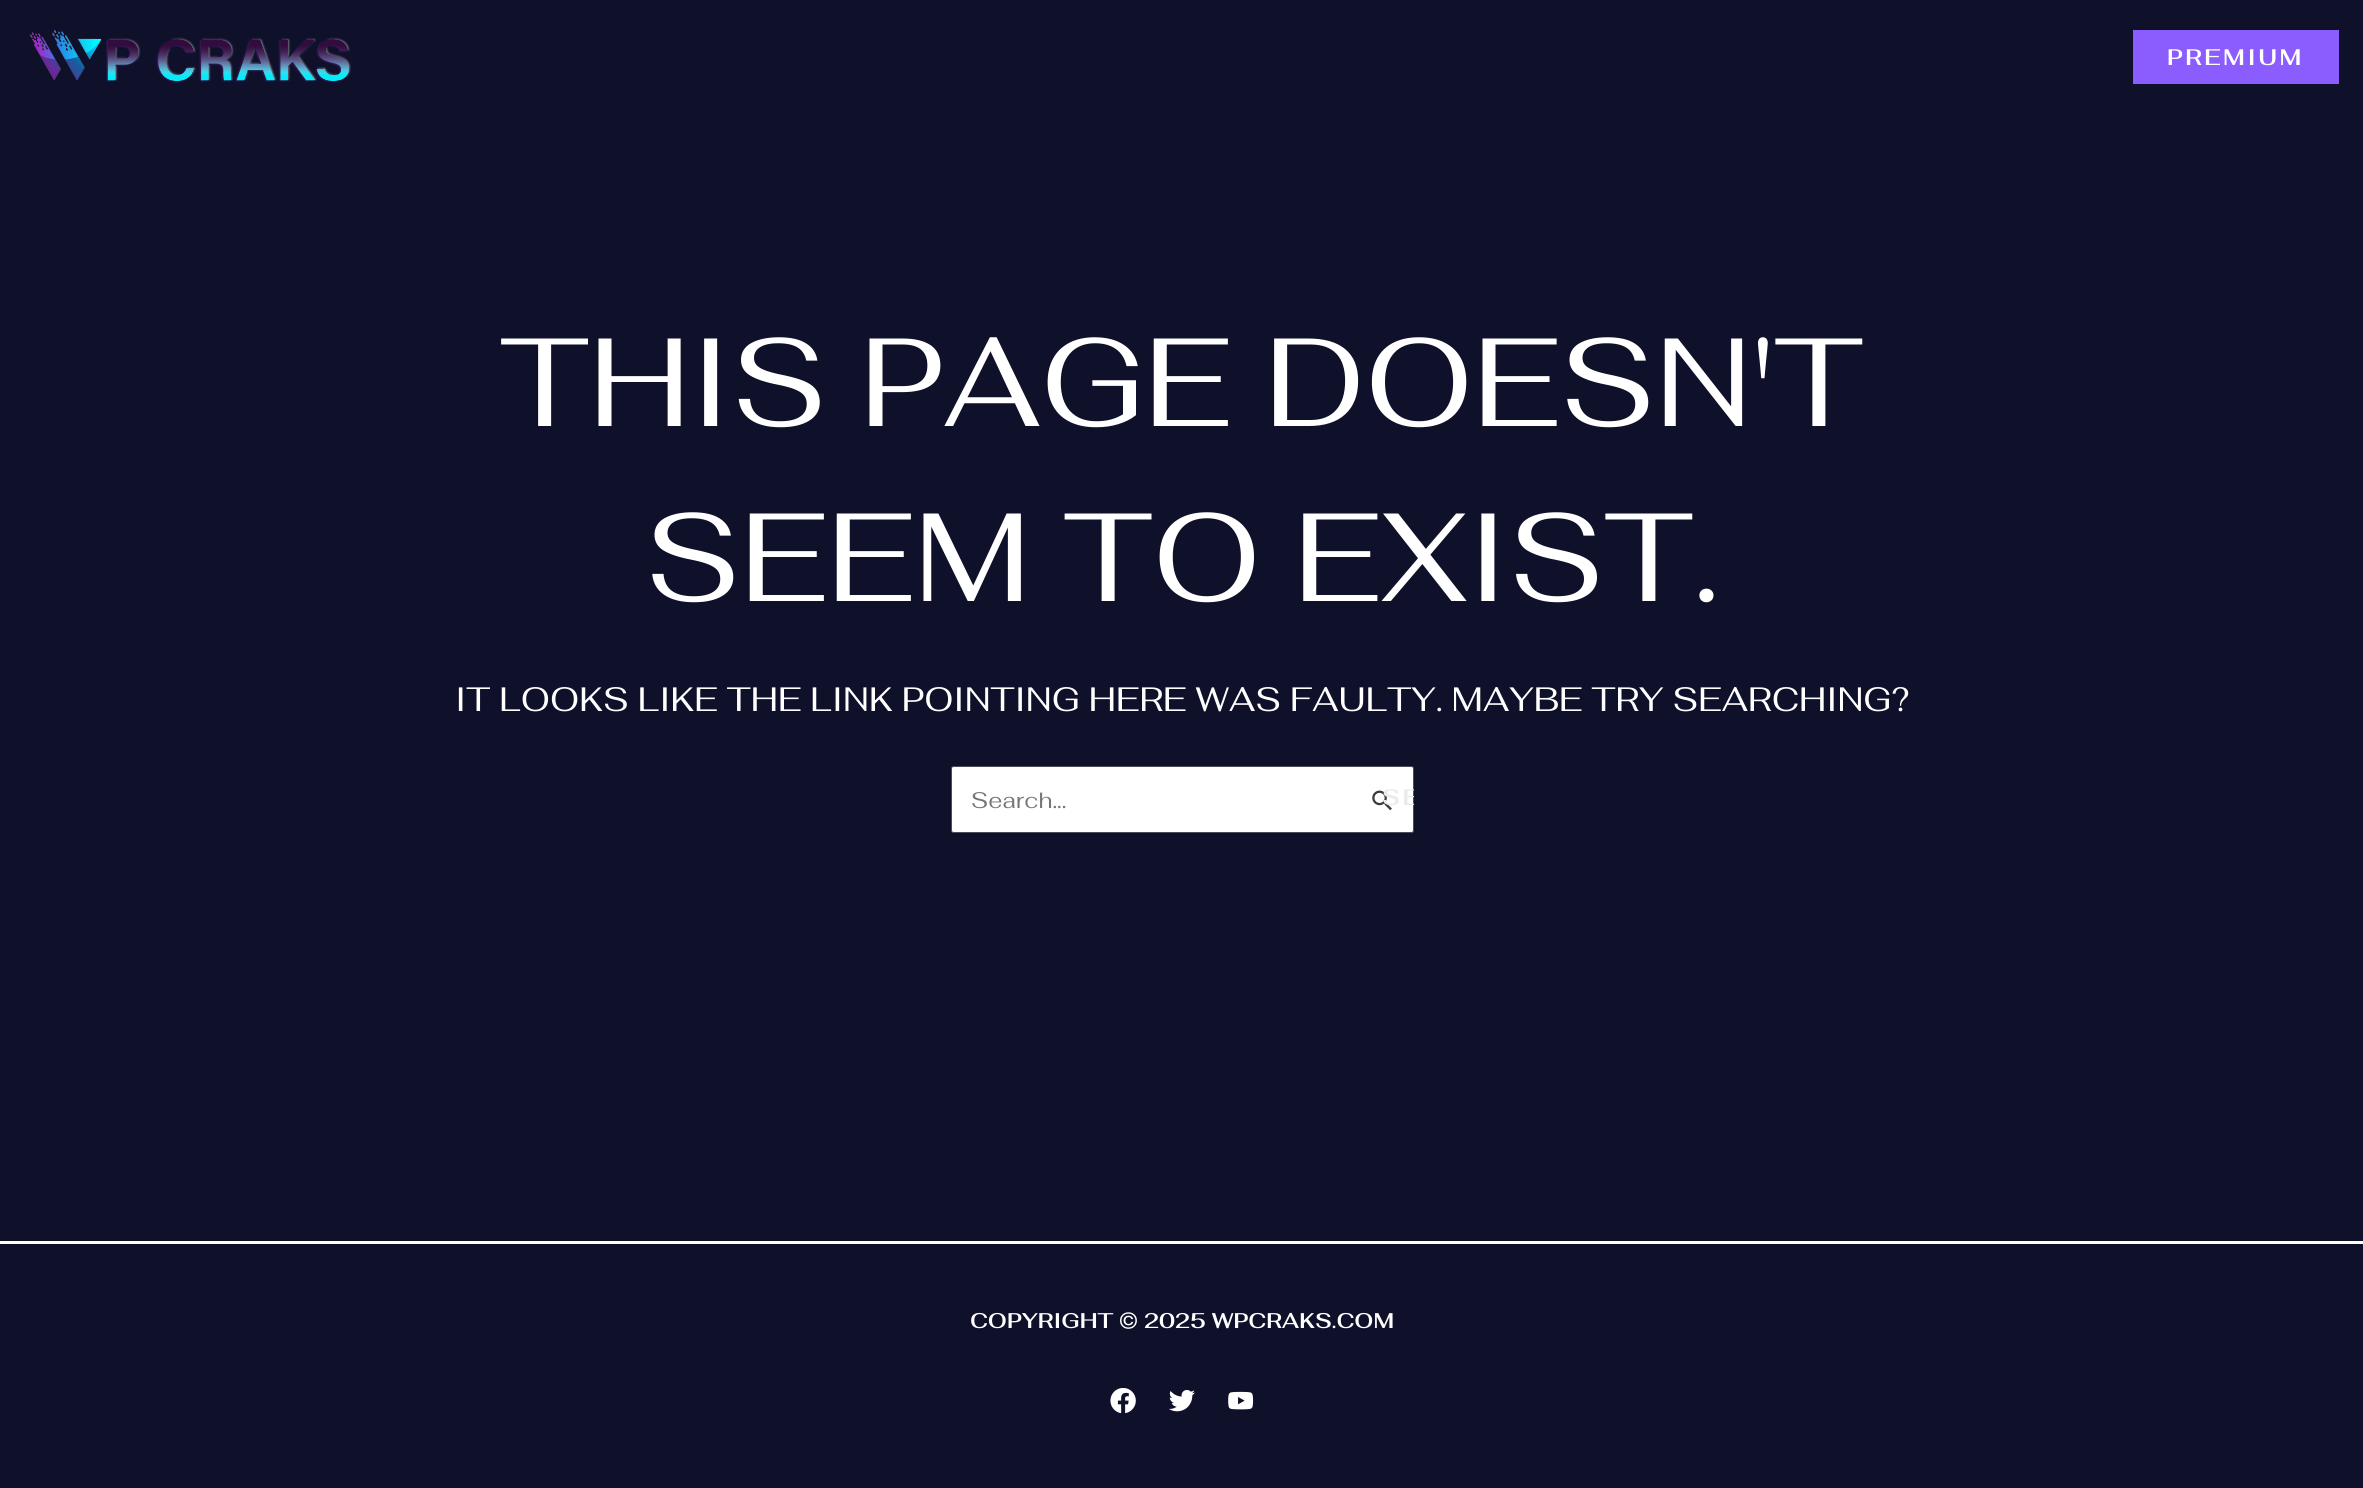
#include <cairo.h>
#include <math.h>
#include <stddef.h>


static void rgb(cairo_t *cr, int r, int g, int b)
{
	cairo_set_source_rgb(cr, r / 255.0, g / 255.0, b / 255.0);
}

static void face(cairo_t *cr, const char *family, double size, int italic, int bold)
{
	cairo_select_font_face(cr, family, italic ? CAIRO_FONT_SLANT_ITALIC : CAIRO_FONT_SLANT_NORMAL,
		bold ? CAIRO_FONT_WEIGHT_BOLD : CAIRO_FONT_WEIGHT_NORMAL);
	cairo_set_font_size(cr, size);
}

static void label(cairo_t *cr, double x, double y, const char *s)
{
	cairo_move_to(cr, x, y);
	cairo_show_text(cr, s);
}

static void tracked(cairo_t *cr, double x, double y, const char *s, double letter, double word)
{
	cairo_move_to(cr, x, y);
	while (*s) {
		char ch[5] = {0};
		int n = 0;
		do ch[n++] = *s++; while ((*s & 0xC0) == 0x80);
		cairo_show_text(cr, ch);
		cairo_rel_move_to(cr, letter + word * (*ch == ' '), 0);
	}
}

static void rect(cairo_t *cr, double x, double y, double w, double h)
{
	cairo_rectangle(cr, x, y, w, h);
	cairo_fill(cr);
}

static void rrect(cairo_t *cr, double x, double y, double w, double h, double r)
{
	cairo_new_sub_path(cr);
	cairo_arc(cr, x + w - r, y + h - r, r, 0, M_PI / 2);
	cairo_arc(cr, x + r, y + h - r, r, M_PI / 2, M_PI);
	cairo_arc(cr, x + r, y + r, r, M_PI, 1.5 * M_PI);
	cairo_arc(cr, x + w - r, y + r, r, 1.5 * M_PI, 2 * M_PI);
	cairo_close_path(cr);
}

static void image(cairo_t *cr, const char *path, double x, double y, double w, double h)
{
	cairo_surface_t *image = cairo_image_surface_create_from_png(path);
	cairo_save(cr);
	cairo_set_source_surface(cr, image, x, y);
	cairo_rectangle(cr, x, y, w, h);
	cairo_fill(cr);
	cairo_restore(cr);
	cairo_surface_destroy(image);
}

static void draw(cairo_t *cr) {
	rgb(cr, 15, 16, 42);
	cairo_paint(cr);
	image(cr, "image0.png", 29, 30, 322, 53);
	rgb(cr, 139, 93, 255);
	rect(cr, 2133, 30, 206, 54);
	face(cr, "Fahkwang SemiBold", 22.5, 0, 0);
	rgb(cr, 255, 255, 255);
	tracked(cr, 2167, 65, "PREMIUM", 2.5, 0);
	face(cr, "Fahkwang", 125, 0, 0);
	label(cr, 500, 426, "THIS PAGE DOESN'T");
	label(cr, 645, 601, "SEEM TO EXIST.");
	face(cr, "Fahkwang", 33.75, 0, 0);
	label(cr, 455, 711, "IT LOOKS LIKE THE LINK POINTING HERE WAS FAULTY. MAYBE TRY SEARCHING?");
	rrect(cr, 951.5, 766.5, 462, 66, 2);
	cairo_fill_preserve(cr);
	rgb(cr, 75, 77, 86);
	cairo_set_line_width(cr, 1);
	cairo_stroke(cr);
	face(cr, "Fahkwang", 22.5, 0, 0);
	rgb(cr, 117, 117, 117);
	label(cr, 971, 808, "Search...");
	image(cr, "image1.png", 1372, 790, 20, 21);
	cairo_save(cr);
	rrect(cr, 1358, 766, 56, 63, 2.5);
	cairo_clip(cr);
	face(cr, "Fahkwang SemiBold", 22.5, 0, 0);
	rgb(cr, 234, 234, 234);
	tracked(cr, 1382, 805, "SE", 2.5, 0);
	cairo_restore(cr);
	rgb(cr, 255, 255, 255);
	rect(cr, 0, 1241, 2363, 3);
	face(cr, "Fahkwang SemiBold", 21.25, 0, 0);
	label(cr, 970, 1328, "COPYRIGHT © 2025 WPCRAKS.COM");
	image(cr, "image2.png", 1110, 1388, 26, 26);
	image(cr, "image3.png", 1169, 1390, 26, 22);
	image(cr, "image4.png", 1228, 1391, 26, 19);
}

int main(void) {
	cairo_surface_t *surface = cairo_image_surface_create(CAIRO_FORMAT_RGB24, 2363, 1488);
	cairo_t *cr = cairo_create(surface);
	cairo_font_options_t *options = cairo_font_options_create();
	cairo_font_options_set_hint_metrics(options, CAIRO_HINT_METRICS_OFF);
	cairo_font_options_set_hint_style(options, CAIRO_HINT_STYLE_NONE);
	cairo_set_font_options(cr, options);
	cairo_set_miter_limit(cr, 4);
	draw(cr);
	cairo_surface_write_to_png(surface, "render.png");
	cairo_font_options_destroy(options);
	cairo_destroy(cr);
	cairo_surface_destroy(surface);
	return 0;
}
